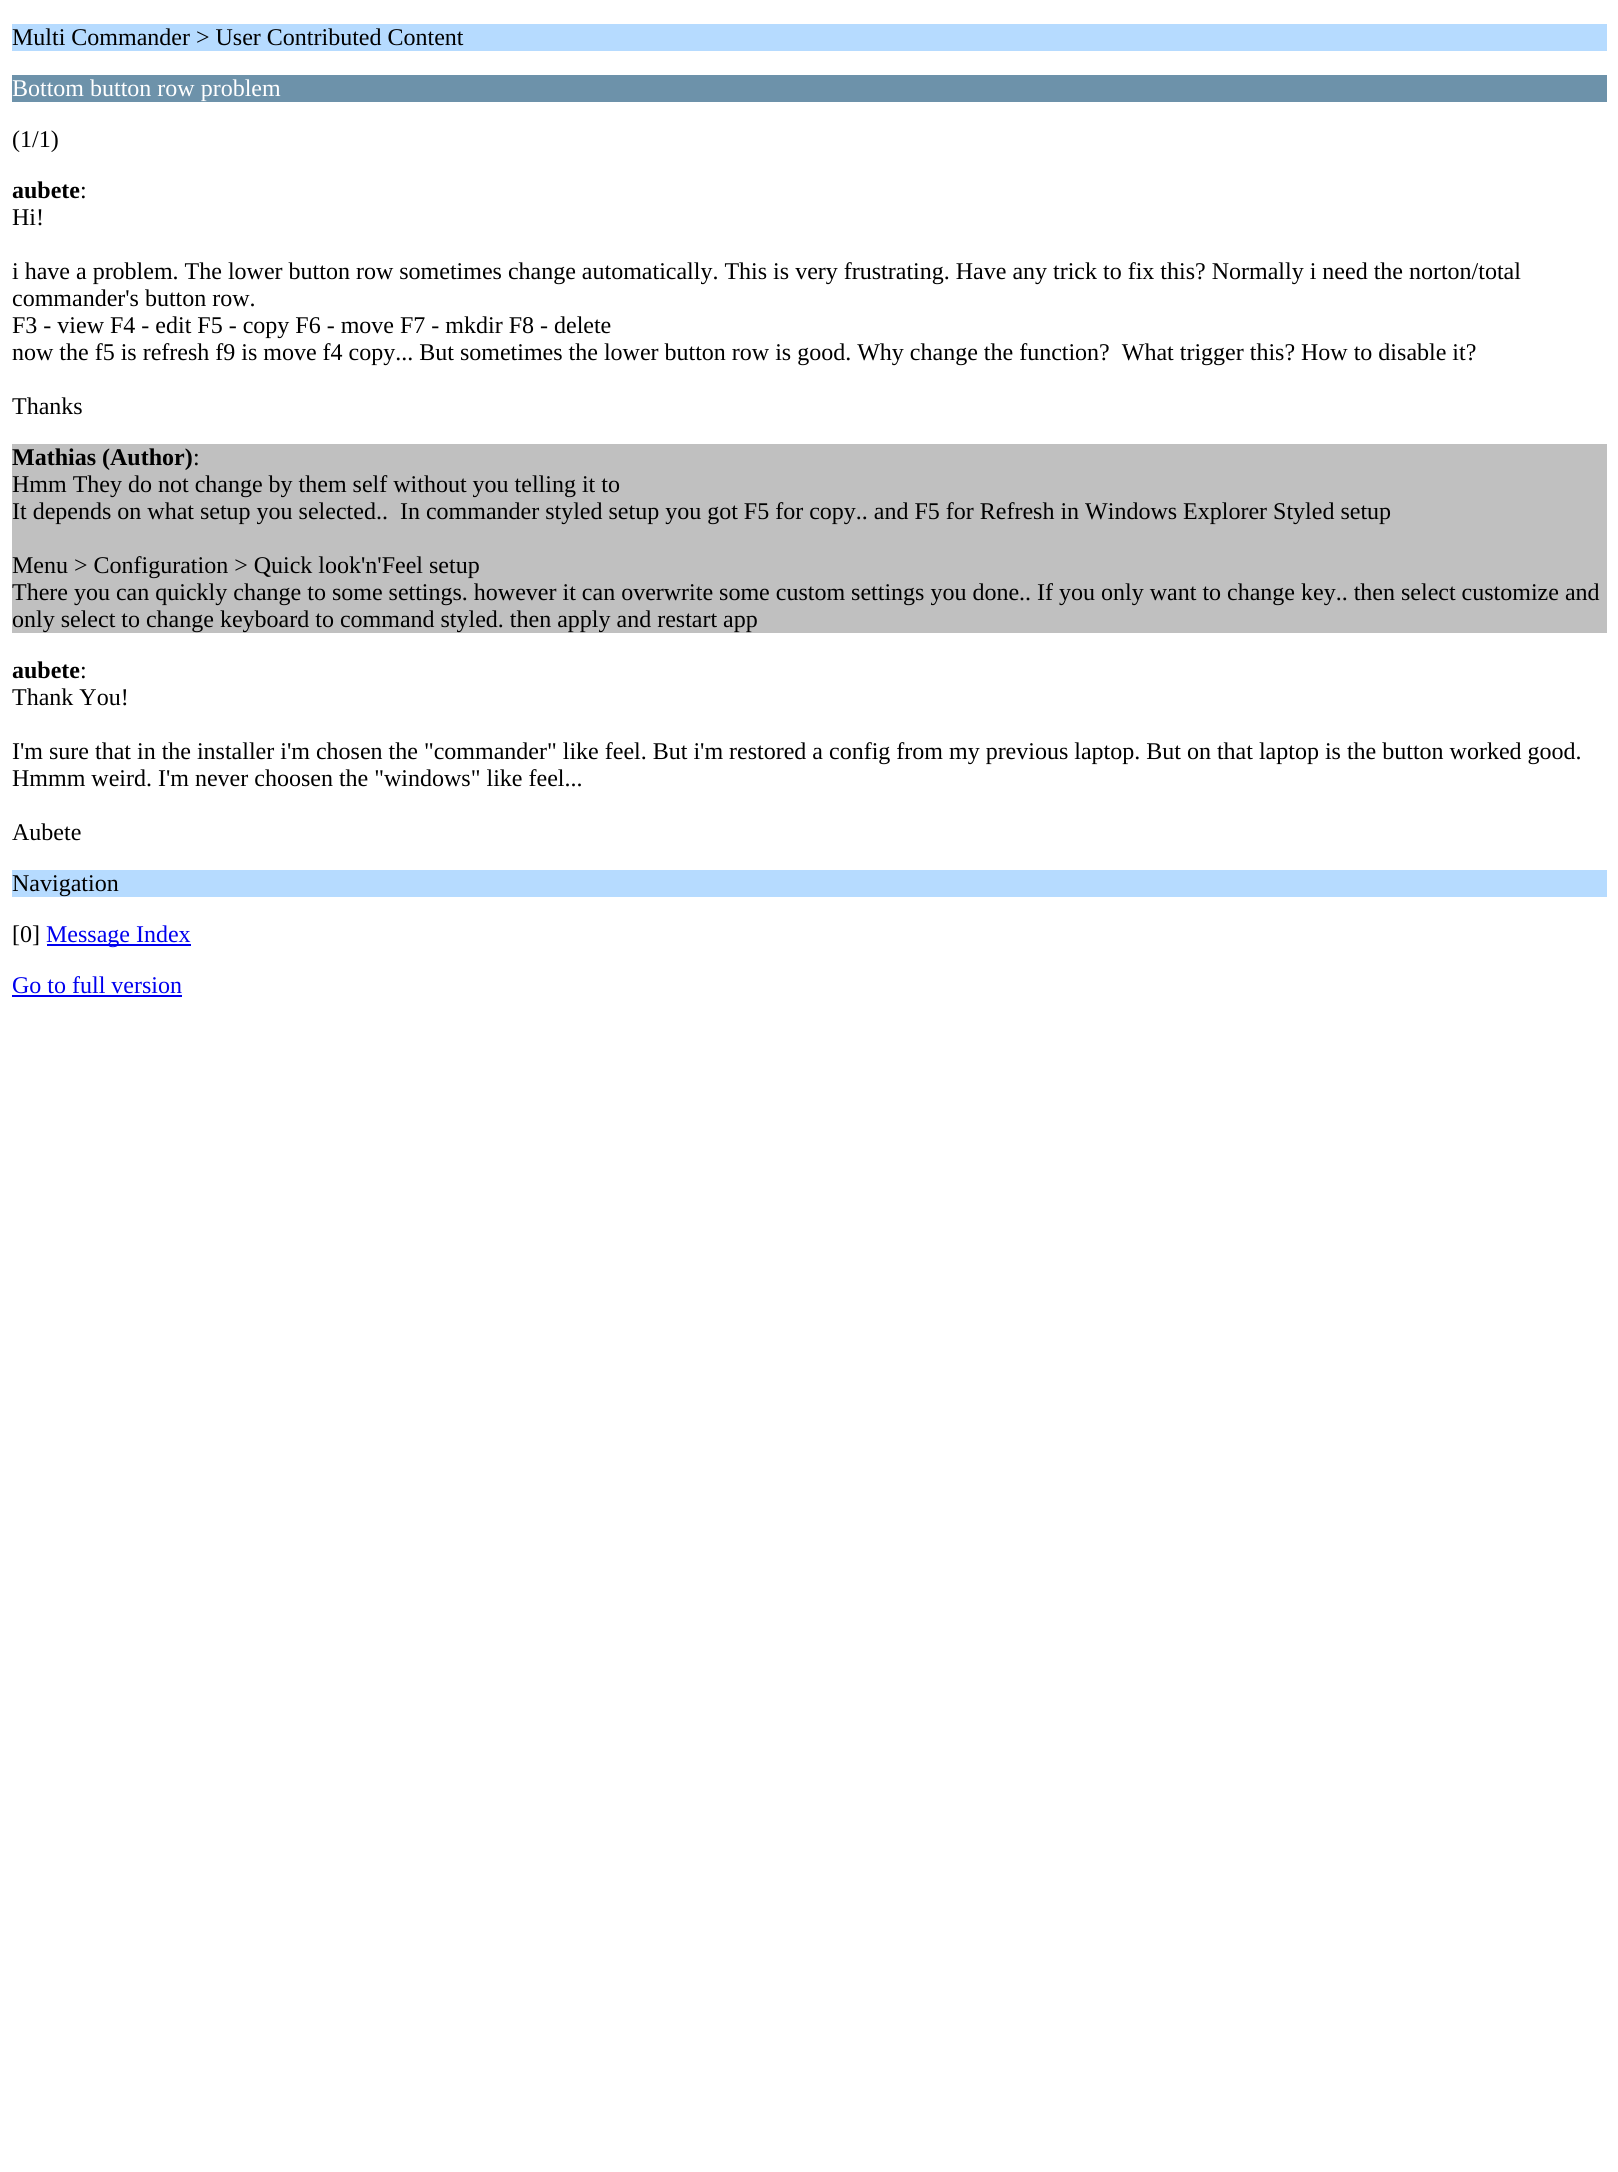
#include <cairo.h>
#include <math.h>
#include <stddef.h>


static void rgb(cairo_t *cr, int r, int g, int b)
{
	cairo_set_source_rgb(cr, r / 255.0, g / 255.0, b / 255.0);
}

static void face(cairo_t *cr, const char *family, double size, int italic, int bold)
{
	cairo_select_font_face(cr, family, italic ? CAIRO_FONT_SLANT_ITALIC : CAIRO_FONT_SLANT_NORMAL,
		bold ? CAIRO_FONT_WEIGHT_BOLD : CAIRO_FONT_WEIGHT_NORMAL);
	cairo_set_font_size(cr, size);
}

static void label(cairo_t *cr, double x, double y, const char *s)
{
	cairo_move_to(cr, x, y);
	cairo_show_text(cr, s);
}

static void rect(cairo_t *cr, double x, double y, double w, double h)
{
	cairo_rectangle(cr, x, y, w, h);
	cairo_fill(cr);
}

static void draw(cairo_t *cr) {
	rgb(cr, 255, 255, 255);
	cairo_paint(cr);
	rgb(cr, 182, 219, 255);
	rect(cr, 12, 24, 1595, 27);
	face(cr, "Liberation Serif", 24, 0, 0);
	rgb(cr, 0, 0, 0);
	label(cr, 12, 45, "Multi Commander > User Contributed Content");
	rgb(cr, 109, 146, 170);
	rect(cr, 12, 75, 1595, 27);
	rgb(cr, 255, 255, 255);
	label(cr, 12, 96, "Bottom button row problem");
	rgb(cr, 0, 0, 0);
	label(cr, 12, 147, "(1/1)");
	face(cr, "Liberation Serif", 24, 0, 1);
	label(cr, 12, 198, "aubete");
	face(cr, "Liberation Serif", 24, 0, 0);
	label(cr, 80, 198, ":");
	label(cr, 12, 225, "Hi!");
	label(cr, 12, 279, "i have a problem. The lower button row sometimes change automatically. This is very frustrating. Have any trick to fix this? Normally i need the norton/total");
	label(cr, 12, 306, "commander's button row.");
	label(cr, 12, 333, "F3 - view F4 - edit F5 - copy F6 - move F7 - mkdir F8 - delete");
	label(cr, 12, 360, "now the f5 is refresh f9 is move f4 copy... But sometimes the lower button row is good. Why change the function?  What trigger this? How to disable it?");
	label(cr, 12, 414, "Thanks");
	rgb(cr, 192, 192, 192);
	rect(cr, 12, 444, 1595, 189);
	face(cr, "Liberation Serif", 24, 0, 1);
	rgb(cr, 0, 0, 0);
	label(cr, 12, 465, "Mathias (Author)");
	face(cr, "Liberation Serif", 24, 0, 0);
	label(cr, 193, 465, ":");
	label(cr, 12, 492, "Hmm They do not change by them self without you telling it to");
	label(cr, 12, 519, "It depends on what setup you selected..  In commander styled setup you got F5 for copy.. and F5 for Refresh in Windows Explorer Styled setup");
	label(cr, 12, 573, "Menu > Configuration > Quick look'n'Feel setup");
	label(cr, 12, 600, "There you can quickly change to some settings. however it can overwrite some custom settings you done.. If you only want to change key.. then select customize and");
	label(cr, 12, 627, "only select to change keyboard to command styled. then apply and restart app");
	face(cr, "Liberation Serif", 24, 0, 1);
	label(cr, 12, 678, "aubete");
	face(cr, "Liberation Serif", 24, 0, 0);
	label(cr, 80, 678, ":");
	label(cr, 12, 705, "Thank You!");
	label(cr, 12, 759, "I'm sure that in the installer i'm chosen the \"commander\" like feel. But i'm restored a config from my previous laptop. But on that laptop is the button worked good.");
	label(cr, 12, 786, "Hmmm weird. I'm never choosen the \"windows\" like feel...");
	label(cr, 12, 840, "Aubete");
	rgb(cr, 182, 219, 255);
	rect(cr, 12, 870, 1595, 27);
	rgb(cr, 0, 0, 0);
	label(cr, 12, 891, "Navigation");
	label(cr, 12, 942, "[0]");
	rgb(cr, 0, 0, 238);
	rect(cr, 47, 944, 144, 2);
	label(cr, 46, 942, "Message Index");
	label(cr, 12, 993, "Go to full version");
	rect(cr, 12, 995, 170, 2);
}

int main(void) {
	cairo_surface_t *surface = cairo_image_surface_create(CAIRO_FORMAT_RGB24, 1618, 2172);
	cairo_t *cr = cairo_create(surface);
	cairo_font_options_t *options = cairo_font_options_create();
	cairo_font_options_set_hint_metrics(options, CAIRO_HINT_METRICS_OFF);
	cairo_font_options_set_hint_style(options, CAIRO_HINT_STYLE_NONE);
	cairo_set_font_options(cr, options);
	cairo_set_miter_limit(cr, 4);
	draw(cr);
	cairo_surface_write_to_png(surface, "render.png");
	cairo_font_options_destroy(options);
	cairo_destroy(cr);
	cairo_surface_destroy(surface);
	return 0;
}
